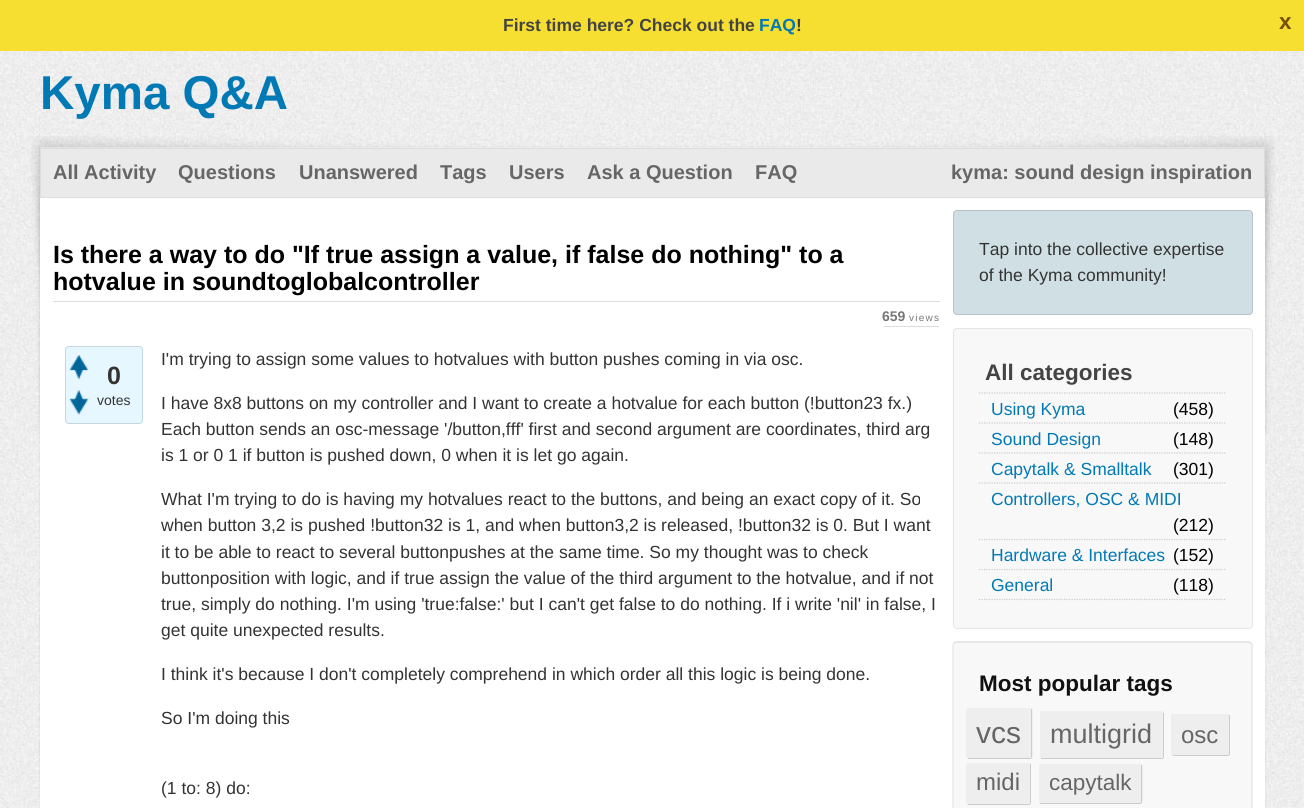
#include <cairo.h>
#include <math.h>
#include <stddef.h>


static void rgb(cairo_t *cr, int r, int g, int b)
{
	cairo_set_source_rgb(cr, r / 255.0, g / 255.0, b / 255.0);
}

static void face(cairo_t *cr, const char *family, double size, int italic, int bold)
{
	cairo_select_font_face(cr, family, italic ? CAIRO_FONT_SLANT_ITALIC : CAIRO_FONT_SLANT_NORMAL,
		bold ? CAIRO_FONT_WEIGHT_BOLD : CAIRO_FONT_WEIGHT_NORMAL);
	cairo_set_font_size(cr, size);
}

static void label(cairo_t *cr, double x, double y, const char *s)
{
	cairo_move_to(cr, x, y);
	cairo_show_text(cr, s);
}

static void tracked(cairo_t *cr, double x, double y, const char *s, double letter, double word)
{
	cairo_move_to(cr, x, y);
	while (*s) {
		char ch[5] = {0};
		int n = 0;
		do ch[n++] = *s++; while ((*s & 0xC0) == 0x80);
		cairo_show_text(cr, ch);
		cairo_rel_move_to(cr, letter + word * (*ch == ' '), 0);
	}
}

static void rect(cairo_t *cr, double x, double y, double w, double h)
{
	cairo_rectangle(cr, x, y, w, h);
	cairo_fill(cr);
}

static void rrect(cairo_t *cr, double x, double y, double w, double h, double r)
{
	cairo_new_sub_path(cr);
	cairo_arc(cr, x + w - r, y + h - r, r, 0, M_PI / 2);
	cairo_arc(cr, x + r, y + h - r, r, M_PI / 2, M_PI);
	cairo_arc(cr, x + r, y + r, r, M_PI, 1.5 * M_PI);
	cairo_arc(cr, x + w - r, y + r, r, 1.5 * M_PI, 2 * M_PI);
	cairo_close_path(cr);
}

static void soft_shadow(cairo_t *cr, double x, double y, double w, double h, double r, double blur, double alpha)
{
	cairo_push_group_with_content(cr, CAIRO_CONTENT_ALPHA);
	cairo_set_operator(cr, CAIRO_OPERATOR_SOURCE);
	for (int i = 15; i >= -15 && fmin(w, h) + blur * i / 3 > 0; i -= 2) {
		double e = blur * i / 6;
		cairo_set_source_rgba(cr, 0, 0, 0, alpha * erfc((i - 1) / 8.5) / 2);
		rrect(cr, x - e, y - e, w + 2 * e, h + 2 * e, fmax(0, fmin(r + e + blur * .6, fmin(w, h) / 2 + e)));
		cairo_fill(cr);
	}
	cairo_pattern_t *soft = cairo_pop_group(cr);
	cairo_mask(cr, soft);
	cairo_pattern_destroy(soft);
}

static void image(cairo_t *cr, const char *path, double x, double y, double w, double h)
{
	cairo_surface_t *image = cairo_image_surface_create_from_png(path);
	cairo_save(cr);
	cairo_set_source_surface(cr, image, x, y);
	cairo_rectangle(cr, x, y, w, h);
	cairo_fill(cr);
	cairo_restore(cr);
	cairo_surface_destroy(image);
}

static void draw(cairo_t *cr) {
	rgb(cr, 255, 255, 255);
	cairo_paint(cr);
	image(cr, "image0.png", 0, 51, 1304, 757);
	rgb(cr, 246, 223, 48);
	rect(cr, 0, 0, 1304, 51);
	face(cr, "Liberation Sans", 17.5, 0, 1);
	rgb(cr, 68, 68, 68);
	label(cr, 503, 31, "First time here? Check out the");
	rgb(cr, 1, 121, 181);
	label(cr, 759, 31, "FAQ");
	rgb(cr, 68, 68, 68);
	label(cr, 796, 31, "!");
	face(cr, "Liberation Sans", 22.5, 0, 1);
	rgb(cr, 115, 80, 5);
	label(cr, 1279, 29, "x");
	face(cr, "Liberation Sans", 47.5, 0, 1);
	rgb(cr, 1, 121, 181);
	label(cr, 40, 109, "Kyma Q&A");
	image(cr, "image1.png", 31, 136, 1244, 533);
	rgb(cr, 0, 0, 0);
	soft_shadow(cr, 40, 148, 1225, 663, 0, 1, 0.1);
	rgb(cr, 255, 255, 255);
	rect(cr, 40, 198, 1225, 610);
	rgb(cr, 234, 234, 234);
	cairo_rectangle(cr, 40.5, 148.5, 1224, 49);
	cairo_fill_preserve(cr);
	rgb(cr, 221, 221, 221);
	cairo_set_line_width(cr, 1);
	cairo_stroke(cr);
	face(cr, "Liberation Sans", 20, 0, 1);
	rgb(cr, 102, 102, 102);
	label(cr, 53, 179, "All Activity");
	label(cr, 178, 179, "Questions");
	label(cr, 299, 179, "Unanswered");
	label(cr, 440, 179, "Tags");
	label(cr, 509, 179, "Users");
	label(cr, 587, 179, "Ask a Question");
	label(cr, 755, 179, "FAQ");
	label(cr, 951, 179, "kyma: sound design inspiration");
	rgb(cr, 221, 221, 221);
	rect(cr, 53, 301, 887, 1);
	face(cr, "Liberation Sans", 25, 0, 1);
	rgb(cr, 0, 0, 0);
	label(cr, 53, 263, "Is there a way to do \"If true assign a value, if false do nothing\" to a");
	label(cr, 53, 290, "hotvalue in soundtoglobalcontroller");
	rgb(cr, 231, 247, 255);
	rrect(cr, 65.5, 346.5, 77, 77, 3.5);
	cairo_fill_preserve(cr);
	rgb(cr, 197, 214, 223);
	cairo_stroke(cr);
	image(cr, "image2.png", 69, 355, 20, 25);
	image(cr, "image3.png", 69, 390, 20, 25);
	rgb(cr, 51, 51, 51);
	label(cr, 107, 384, "0");
	face(cr, "Liberation Sans", 14, 0, 0);
	label(cr, 97, 405, "votes");
	rgb(cr, 221, 221, 221);
	rect(cr, 884, 326, 55, 1);
	face(cr, "Liberation Sans", 14, 0, 1);
	rgb(cr, 119, 119, 119);
	label(cr, 882, 321, "659");
	face(cr, "Liberation Sans", 10, 0, 0);
	tracked(cr, 909, 321, "views", 1.25, 0);
	face(cr, "Liberation Sans", 17.5, 0, 0);
	rgb(cr, 51, 51, 51);
	label(cr, 161, 365, "I'm trying to assign some values to hotvalues with button pushes coming in via osc.");
	label(cr, 161, 409, "I have 8x8 buttons on my controller and I want to create a hotvalue for each button (!button23 fx.)");
	label(cr, 161, 435, "Each button sends an osc-message '/button,fff' first and second argument are coordinates, third arg");
	label(cr, 161, 461, "is 1 or 0 1 if button is pushed down, 0 when it is let go again.");
	label(cr, 161, 505, "What I'm trying to do is having my hotvalues react to the buttons, and being an exact copy of it. So");
	label(cr, 161, 531, "when button 3,2 is pushed !button32 is 1, and when button3,2 is released, !button32 is 0. But I want");
	label(cr, 161, 558, "it to be able to react to several buttonpushes at the same time. So my thought was to check");
	label(cr, 161, 584, "buttonposition with logic, and if true assign the value of the third argument to the hotvalue, and if not");
	label(cr, 161, 610, "true, simply do nothing. I'm using 'true:false:' but I can't get false to do nothing. If i write 'nil' in false, I");
	label(cr, 161, 636, "get quite unexpected results.");
	label(cr, 161, 680, "I think it's because I don't completely comprehend in which order all this logic is being done.");
	label(cr, 161, 724, "So I'm doing this");
	label(cr, 161, 794, "(1 to: 8) do:");
	rgb(cr, 208, 223, 228);
	rrect(cr, 953.5, 210.5, 299, 104, 3.5);
	cairo_fill_preserve(cr);
	rgb(cr, 182, 196, 200);
	cairo_stroke(cr);
	rgb(cr, 51, 51, 51);
	label(cr, 979, 255, "Tap into the collective expertise");
	label(cr, 979, 281, "of the Kyma community!");
	rgb(cr, 248, 248, 248);
	rrect(cr, 953.5, 328.5, 299, 300, 3.5);
	cairo_fill_preserve(cr);
	rgb(cr, 229, 229, 229);
	cairo_stroke(cr);
	cairo_new_path(cr);
	cairo_move_to(cr, 979, 393);
	cairo_line_to(cr, 1226, 393);
	rgb(cr, 204, 204, 204);
	cairo_set_line_width(cr, 1.2);
	cairo_set_dash(cr, (double[]){1.25, 1.25}, 2, 0);
	cairo_stroke(cr);
	face(cr, "Liberation Sans", 22.5, 0, 1);
	rgb(cr, 68, 68, 68);
	label(cr, 985, 380, "All categories");
	cairo_new_path(cr);
	cairo_move_to(cr, 979, 423);
	cairo_line_to(cr, 1226, 423);
	rgb(cr, 204, 204, 204);
	cairo_stroke(cr);
	face(cr, "Liberation Sans", 17.5, 0, 0);
	rgb(cr, 1, 121, 181);
	label(cr, 991, 415, "Using Kyma");
	rgb(cr, 0, 0, 0);
	label(cr, 1173, 415, "(458)");
	cairo_new_path(cr);
	cairo_move_to(cr, 979, 453);
	cairo_line_to(cr, 1226, 453);
	rgb(cr, 204, 204, 204);
	cairo_stroke(cr);
	rgb(cr, 1, 121, 181);
	label(cr, 991, 445, "Sound Design");
	rgb(cr, 0, 0, 0);
	label(cr, 1173, 445, "(148)");
	cairo_new_path(cr);
	cairo_move_to(cr, 979, 483);
	cairo_line_to(cr, 1226, 483);
	rgb(cr, 204, 204, 204);
	cairo_stroke(cr);
	rgb(cr, 1, 121, 181);
	label(cr, 991, 475, "Capytalk & Smalltalk");
	rgb(cr, 0, 0, 0);
	label(cr, 1173, 475, "(301)");
	cairo_new_path(cr);
	cairo_move_to(cr, 979, 539.5);
	cairo_line_to(cr, 1226, 539.5);
	rgb(cr, 204, 204, 204);
	cairo_stroke(cr);
	rgb(cr, 1, 121, 181);
	label(cr, 991, 505, "Controllers, OSC & MIDI");
	rgb(cr, 0, 0, 0);
	label(cr, 1173, 531, "(212)");
	cairo_new_path(cr);
	cairo_move_to(cr, 979, 569.5);
	cairo_line_to(cr, 1226, 569.5);
	rgb(cr, 204, 204, 204);
	cairo_stroke(cr);
	rgb(cr, 1, 121, 181);
	label(cr, 991, 561, "Hardware & Interfaces");
	rgb(cr, 0, 0, 0);
	label(cr, 1173, 561, "(152)");
	cairo_new_path(cr);
	cairo_move_to(cr, 979, 599.5);
	cairo_line_to(cr, 1226, 599.5);
	rgb(cr, 204, 204, 204);
	cairo_stroke(cr);
	rgb(cr, 1, 121, 181);
	label(cr, 991, 591, "General");
	rgb(cr, 0, 0, 0);
	label(cr, 1173, 591, "(118)");
	rgb(cr, 248, 248, 248);
	rrect(cr, 953, 641, 300, 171, 4);
	cairo_fill(cr);
	cairo_new_path(cr);
	cairo_move_to(cr, 954, 643);
	cairo_line_to(cr, 956, 642);
	cairo_line_to(cr, 1249, 642);
	cairo_line_to(cr, 1251, 643);
	rgb(cr, 221, 221, 221);
	cairo_set_dash(cr, NULL, 0, 0);
	cairo_stroke(cr);
	cairo_new_path(cr);
	cairo_move_to(cr, 1251, 643);
	cairo_line_to(cr, 1252, 645);
	cairo_line_to(cr, 1252, 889);
	cairo_curve_to(cr, 1252, 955, 1266.5, 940.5, 1200, 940.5);
	cairo_line_to(cr, 1005, 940.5);
	cairo_curve_to(cr, 938.5, 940.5, 953, 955, 953, 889);
	cairo_line_to(cr, 953, 645);
	cairo_line_to(cr, 954, 643);
	rgb(cr, 229, 229, 229);
	cairo_stroke(cr);
	face(cr, "Liberation Sans", 22.5, 0, 1);
	rgb(cr, 17, 17, 17);
	label(cr, 979, 691, "Most popular tags");
	rgb(cr, 238, 238, 238);
	rrect(cr, 966, 708, 67, 51, 2.5);
	cairo_fill(cr);
	rgb(cr, 204, 204, 204);
	rect(cr, 1031, 709, 1, 49);
	rect(cr, 968, 758, 63, 1);
	face(cr, "Liberation Sans", 30, 0, 0);
	rgb(cr, 102, 102, 102);
	label(cr, 976, 743, "vcs");
	rgb(cr, 238, 238, 238);
	rrect(cr, 1040, 711, 124, 48, 2.5);
	cairo_fill(cr);
	rgb(cr, 204, 204, 204);
	rect(cr, 1163, 713, 1, 45);
	rect(cr, 1041, 758, 122, 1);
	face(cr, "Liberation Sans", 27, 0, 0);
	rgb(cr, 102, 102, 102);
	label(cr, 1050, 743, "multigrid");
	rgb(cr, 238, 238, 238);
	rrect(cr, 1171, 714, 59, 42, 2.5);
	cairo_fill(cr);
	rgb(cr, 204, 204, 204);
	rect(cr, 1229, 715, 1, 40);
	rect(cr, 1173, 755, 56, 1);
	face(cr, "Liberation Sans", 24, 0, 0);
	rgb(cr, 102, 102, 102);
	label(cr, 1181, 743, "osc");
	rgb(cr, 238, 238, 238);
	rrect(cr, 966, 763, 65, 42, 2.5);
	cairo_fill(cr);
	rgb(cr, 204, 204, 204);
	rect(cr, 1030, 764, 1, 40);
	rect(cr, 968, 804, 62, 1);
	rgb(cr, 102, 102, 102);
	label(cr, 976, 790, "midi");
	rgb(cr, 238, 238, 238);
	rrect(cr, 1039, 764, 104, 40, 2.5);
	cairo_fill(cr);
	rgb(cr, 204, 204, 204);
	rect(cr, 1141, 765, 1, 38);
	rect(cr, 1040, 803, 101, 1);
	face(cr, "Liberation Sans", 22.5, 0, 0);
	rgb(cr, 102, 102, 102);
	label(cr, 1049, 790, "capytalk");
}

int main(void) {
	cairo_surface_t *surface = cairo_image_surface_create(CAIRO_FORMAT_RGB24, 1304, 808);
	cairo_t *cr = cairo_create(surface);
	cairo_font_options_t *options = cairo_font_options_create();
	cairo_font_options_set_hint_metrics(options, CAIRO_HINT_METRICS_OFF);
	cairo_font_options_set_hint_style(options, CAIRO_HINT_STYLE_NONE);
	cairo_set_font_options(cr, options);
	cairo_set_miter_limit(cr, 4);
	draw(cr);
	cairo_surface_write_to_png(surface, "render.png");
	cairo_font_options_destroy(options);
	cairo_destroy(cr);
	cairo_surface_destroy(surface);
	return 0;
}
